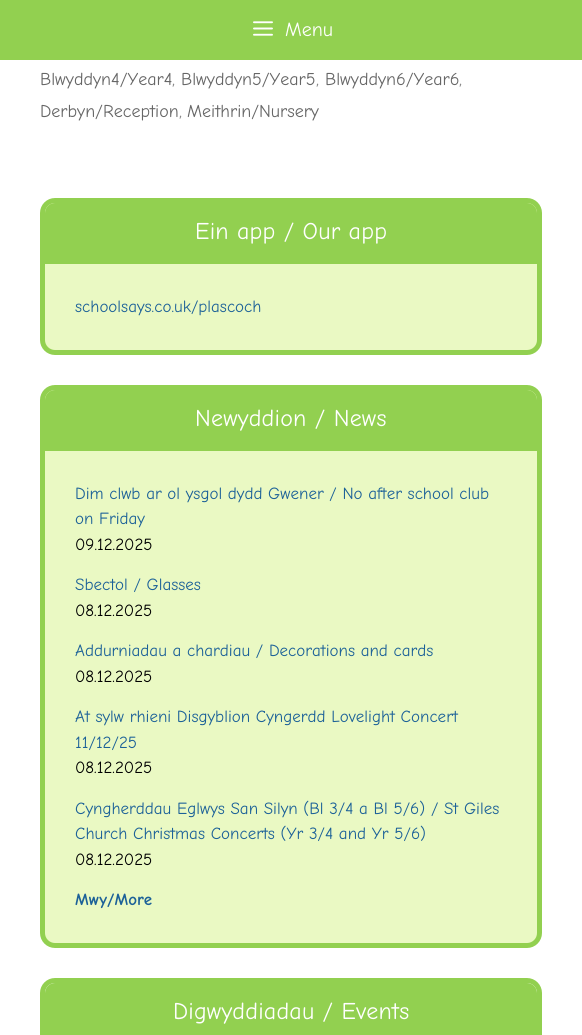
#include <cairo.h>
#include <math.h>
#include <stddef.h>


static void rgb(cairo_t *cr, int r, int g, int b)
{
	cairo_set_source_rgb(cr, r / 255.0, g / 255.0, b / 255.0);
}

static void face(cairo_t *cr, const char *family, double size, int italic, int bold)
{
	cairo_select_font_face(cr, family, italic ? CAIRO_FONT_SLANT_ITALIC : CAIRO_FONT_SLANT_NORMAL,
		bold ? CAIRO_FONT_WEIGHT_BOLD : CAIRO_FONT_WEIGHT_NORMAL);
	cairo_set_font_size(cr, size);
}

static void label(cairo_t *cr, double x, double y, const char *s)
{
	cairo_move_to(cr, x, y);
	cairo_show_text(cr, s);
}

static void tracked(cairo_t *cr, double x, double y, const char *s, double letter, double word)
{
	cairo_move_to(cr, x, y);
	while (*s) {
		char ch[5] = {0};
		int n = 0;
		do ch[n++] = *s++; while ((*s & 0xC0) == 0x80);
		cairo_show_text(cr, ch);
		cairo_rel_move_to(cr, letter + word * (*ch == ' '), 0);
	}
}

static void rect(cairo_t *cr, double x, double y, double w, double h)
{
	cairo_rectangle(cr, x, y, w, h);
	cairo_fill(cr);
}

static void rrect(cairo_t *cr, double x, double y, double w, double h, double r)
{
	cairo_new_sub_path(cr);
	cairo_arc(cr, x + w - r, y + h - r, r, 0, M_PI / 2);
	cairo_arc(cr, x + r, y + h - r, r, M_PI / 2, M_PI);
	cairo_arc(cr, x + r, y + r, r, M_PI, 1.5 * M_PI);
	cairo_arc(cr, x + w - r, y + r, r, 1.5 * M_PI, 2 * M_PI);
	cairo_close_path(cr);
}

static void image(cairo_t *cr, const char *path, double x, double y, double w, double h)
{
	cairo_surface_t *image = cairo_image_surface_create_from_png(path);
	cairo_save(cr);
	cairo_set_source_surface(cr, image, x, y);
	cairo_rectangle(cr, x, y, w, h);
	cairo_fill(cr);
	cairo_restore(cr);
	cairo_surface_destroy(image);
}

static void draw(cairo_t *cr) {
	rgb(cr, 255, 255, 255);
	cairo_paint(cr);
	rgb(cr, 146, 208, 80);
	rect(cr, 0, 0, 582, 60);
	image(cr, "image0.png", 253, 21, 20, 15);
	face(cr, "Comic Neue", 20, 0, 0);
	rgb(cr, 255, 255, 255);
	label(cr, 285, 36, "Menu");
	face(cr, "Comic Neue", 18, 0, 0);
	rgb(cr, 102, 102, 102);
	label(cr, 40, 85, "Blwyddyn4/Year4");
	rgb(cr, 136, 136, 136);
	label(cr, 172, 85, ",");
	rgb(cr, 102, 102, 102);
	label(cr, 181, 85, "Blwyddyn5/Year5");
	rgb(cr, 136, 136, 136);
	label(cr, 316, 85, ",");
	rgb(cr, 102, 102, 102);
	label(cr, 325, 85, "Blwyddyn6/Year6");
	rgb(cr, 136, 136, 136);
	label(cr, 459, 85, ",");
	rgb(cr, 102, 102, 102);
	label(cr, 40, 117, "Derbyn/Reception");
	rgb(cr, 136, 136, 136);
	label(cr, 179, 117, ",");
	rgb(cr, 102, 102, 102);
	label(cr, 187, 117, "Meithrin/Nursery");
	rgb(cr, 234, 249, 195);
	rrect(cr, 42.5, 200.5, 497, 152, 12.5);
	cairo_fill_preserve(cr);
	rgb(cr, 146, 208, 80);
	cairo_set_line_width(cr, 5);
	cairo_stroke(cr);
	cairo_new_path(cr);
	cairo_move_to(cr, 55, 203);
	cairo_line_to(cr, 527, 203);
	cairo_curve_to(cr, 532.5, 203, 537, 207.5, 537, 213);
	cairo_line_to(cr, 537, 264);
	cairo_line_to(cr, 45, 264);
	cairo_line_to(cr, 45, 213);
	cairo_curve_to(cr, 45, 207.5, 49.5, 203, 55, 203);
	cairo_close_path(cr);
	cairo_fill(cr);
	face(cr, "Comic Neue", 24, 0, 0);
	rgb(cr, 255, 255, 255);
	tracked(cr, 195, 239, "Ein app / Our app", 0.2, 0);
	face(cr, "Comic Neue", 17, 0, 0);
	rgb(cr, 28, 97, 152);
	label(cr, 75, 312, "schoolsays.co.uk/plascoch");
	rgb(cr, 234, 249, 195);
	rrect(cr, 42.5, 387.5, 497, 558, 12.5);
	cairo_fill_preserve(cr);
	rgb(cr, 146, 208, 80);
	cairo_stroke(cr);
	cairo_new_path(cr);
	cairo_move_to(cr, 55, 390);
	cairo_line_to(cr, 527, 390);
	cairo_curve_to(cr, 532.5, 390, 537, 394.5, 537, 400);
	cairo_line_to(cr, 537, 451);
	cairo_line_to(cr, 45, 451);
	cairo_line_to(cr, 45, 400);
	cairo_curve_to(cr, 45, 394.5, 49.5, 390, 55, 390);
	cairo_close_path(cr);
	cairo_fill(cr);
	face(cr, "Comic Neue", 24, 0, 0);
	rgb(cr, 255, 255, 255);
	tracked(cr, 195, 426, "Newyddion / News", 0.2, 0);
	face(cr, "Comic Neue", 17, 0, 0);
	rgb(cr, 28, 97, 152);
	label(cr, 75, 499, "Dim clwb ar ol ysgol dydd Gwener / No after school club");
	label(cr, 75, 524, "on Friday");
	rgb(cr, 0, 0, 0);
	label(cr, 75, 550, "09.12.2025");
	rgb(cr, 28, 97, 152);
	label(cr, 75, 590, "Sbectol / Glasses");
	rgb(cr, 0, 0, 0);
	label(cr, 75, 616, "08.12.2025");
	rgb(cr, 28, 97, 152);
	label(cr, 75, 656, "Addurniadau a chardiau / Decorations and cards");
	rgb(cr, 0, 0, 0);
	label(cr, 75, 682, "08.12.2025");
	rgb(cr, 28, 97, 152);
	label(cr, 75, 722, "At sylw rhieni Disgyblion Cyngerdd Lovelight Concert");
	label(cr, 75, 748, "11/12/25");
	rgb(cr, 0, 0, 0);
	label(cr, 75, 773, "08.12.2025");
	rgb(cr, 28, 97, 152);
	label(cr, 75, 814, "Cyngherddau Eglwys San Silyn (Bl 3/4 a Bl 5/6) / St Giles");
	label(cr, 75, 839, "Church Christmas Concerts (Yr 3/4 and Yr 5/6)");
	rgb(cr, 0, 0, 0);
	label(cr, 75, 865, "08.12.2025");
	face(cr, "Comic Neue", 17, 0, 1);
	rgb(cr, 28, 97, 152);
	label(cr, 75, 905, "Mwy/More");
	rrect(cr, 42.5, 980.5, 497, 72, 12.5);
	rgb(cr, 146, 208, 80);
	cairo_stroke(cr);
	cairo_new_path(cr);
	cairo_move_to(cr, 55, 983);
	cairo_line_to(cr, 527, 983);
	cairo_curve_to(cr, 532.5, 983, 537, 987.5, 537, 993);
	cairo_line_to(cr, 537, 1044);
	cairo_line_to(cr, 45, 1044);
	cairo_line_to(cr, 45, 993);
	cairo_curve_to(cr, 45, 987.5, 49.5, 983, 55, 983);
	cairo_close_path(cr);
	cairo_fill(cr);
	face(cr, "Comic Neue", 24, 0, 0);
	rgb(cr, 255, 255, 255);
	tracked(cr, 173, 1019, "Digwyddiadau / Events", 0.2, 0);
}

int main(void) {
	cairo_surface_t *surface = cairo_image_surface_create(CAIRO_FORMAT_RGB24, 582, 1035);
	cairo_t *cr = cairo_create(surface);
	cairo_font_options_t *options = cairo_font_options_create();
	cairo_font_options_set_hint_metrics(options, CAIRO_HINT_METRICS_OFF);
	cairo_font_options_set_hint_style(options, CAIRO_HINT_STYLE_NONE);
	cairo_set_font_options(cr, options);
	cairo_set_miter_limit(cr, 4);
	draw(cr);
	cairo_surface_write_to_png(surface, "render.png");
	cairo_font_options_destroy(options);
	cairo_destroy(cr);
	cairo_surface_destroy(surface);
	return 0;
}
